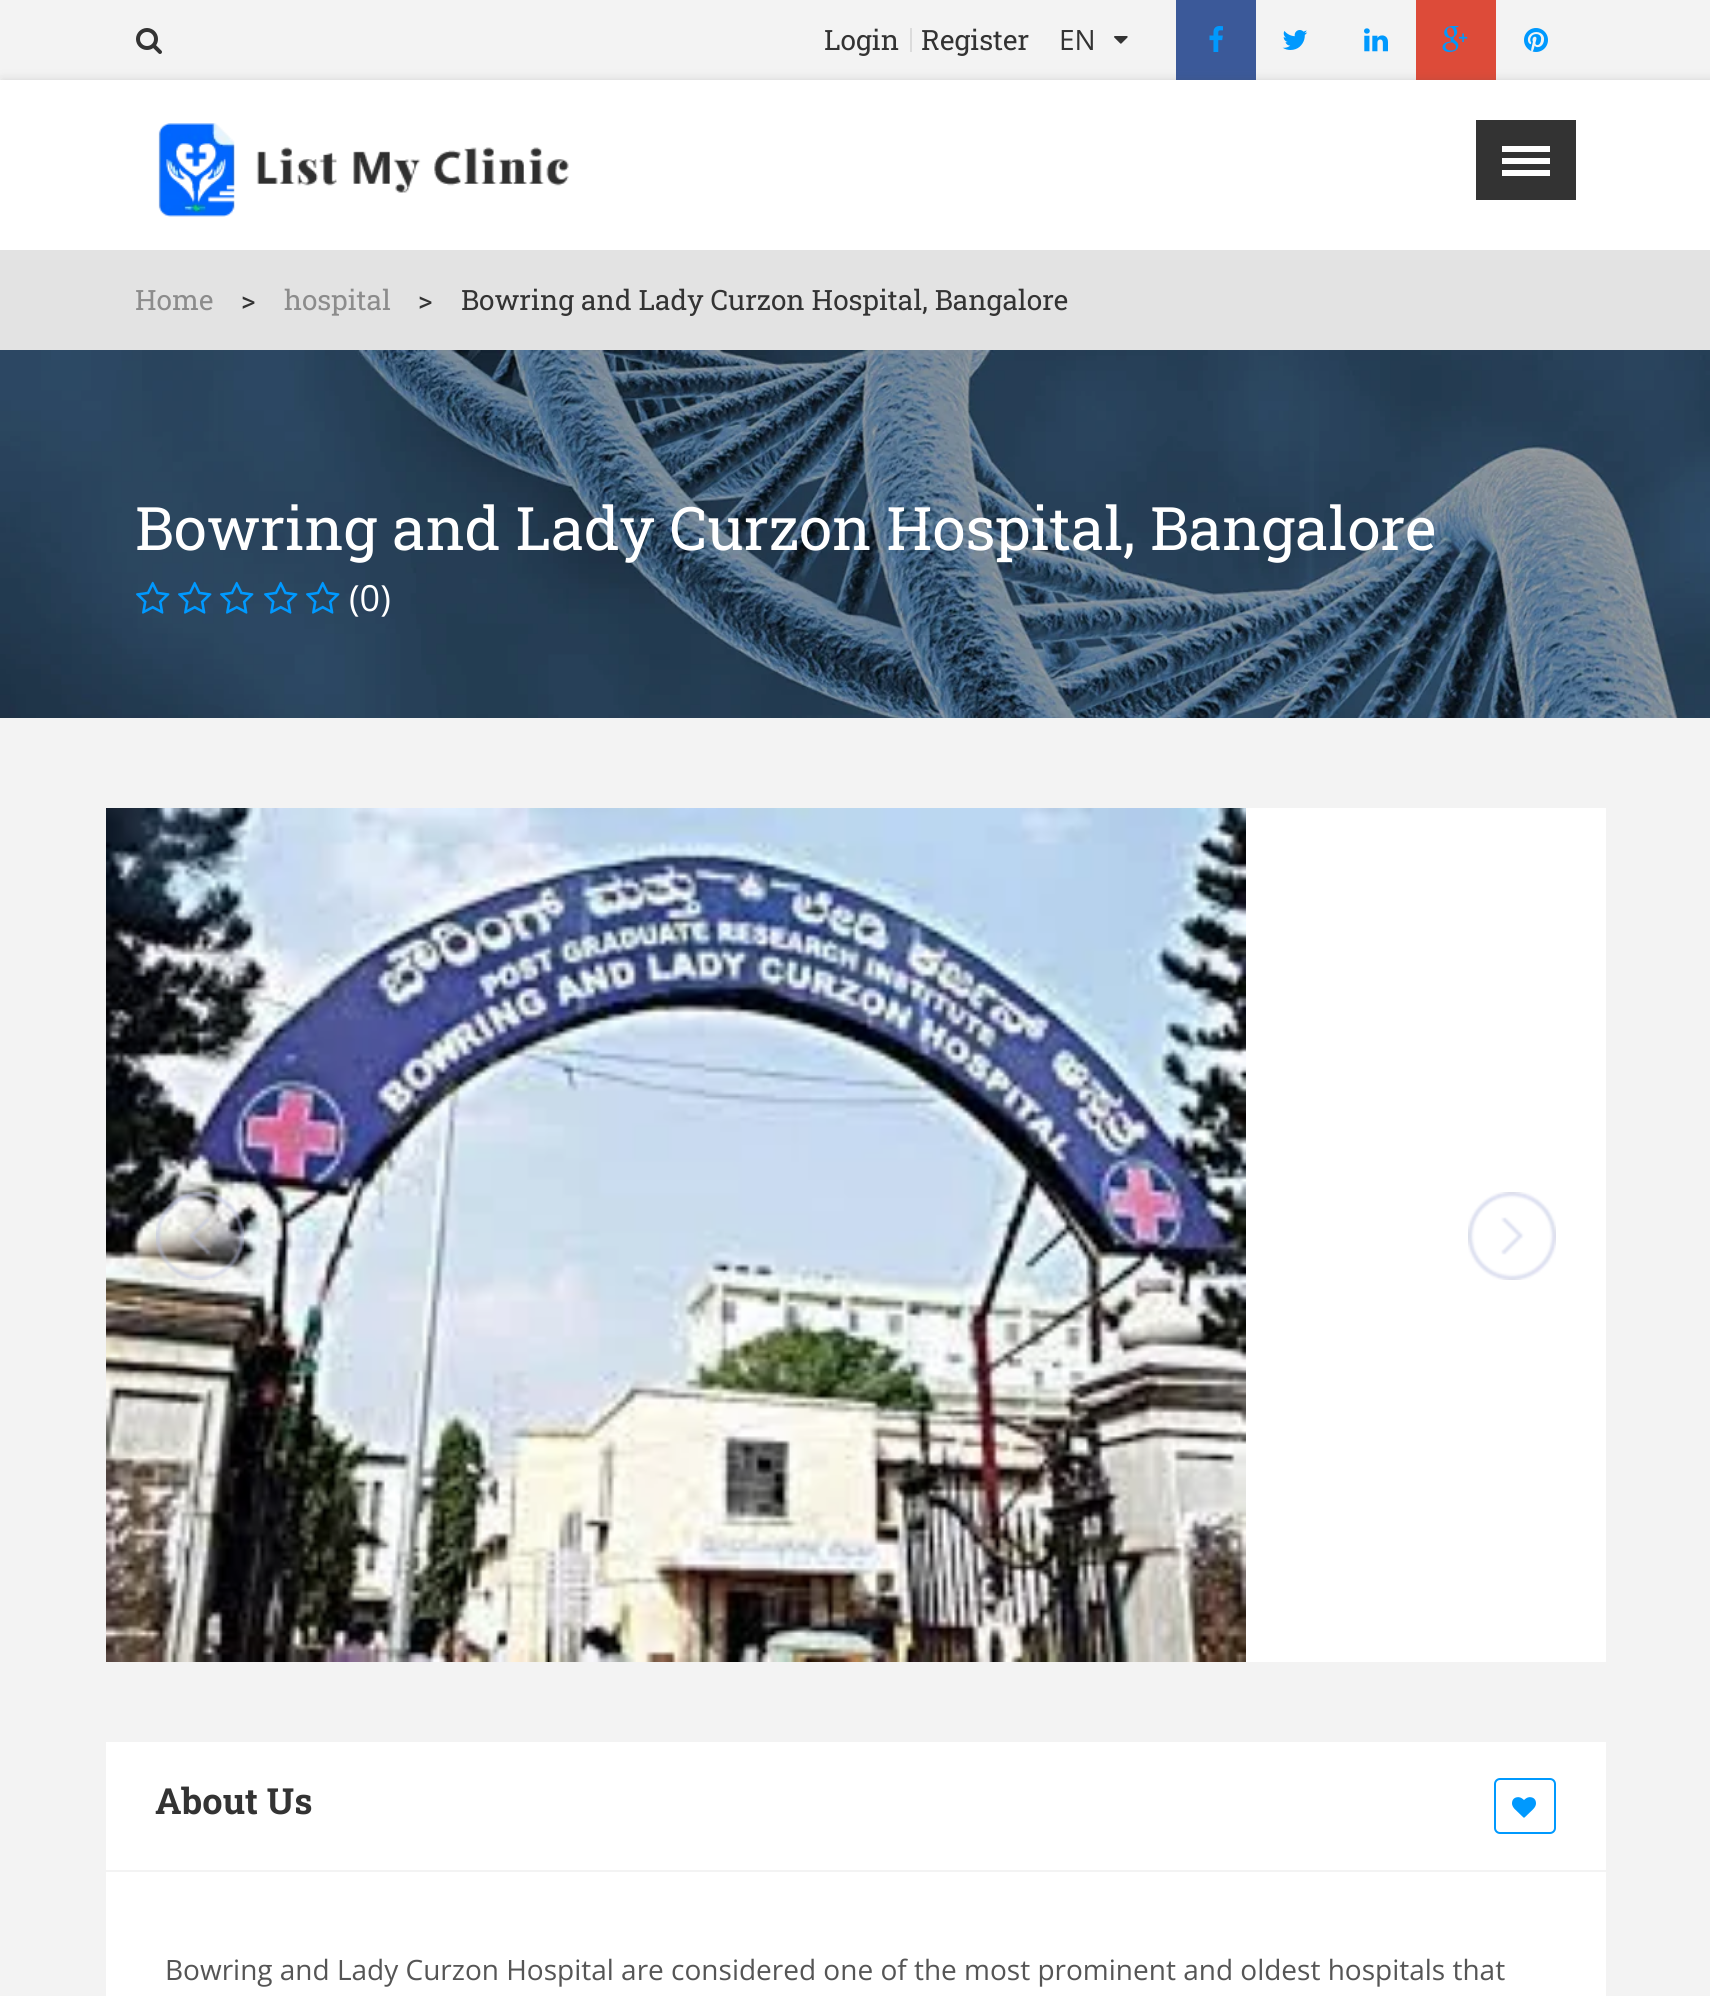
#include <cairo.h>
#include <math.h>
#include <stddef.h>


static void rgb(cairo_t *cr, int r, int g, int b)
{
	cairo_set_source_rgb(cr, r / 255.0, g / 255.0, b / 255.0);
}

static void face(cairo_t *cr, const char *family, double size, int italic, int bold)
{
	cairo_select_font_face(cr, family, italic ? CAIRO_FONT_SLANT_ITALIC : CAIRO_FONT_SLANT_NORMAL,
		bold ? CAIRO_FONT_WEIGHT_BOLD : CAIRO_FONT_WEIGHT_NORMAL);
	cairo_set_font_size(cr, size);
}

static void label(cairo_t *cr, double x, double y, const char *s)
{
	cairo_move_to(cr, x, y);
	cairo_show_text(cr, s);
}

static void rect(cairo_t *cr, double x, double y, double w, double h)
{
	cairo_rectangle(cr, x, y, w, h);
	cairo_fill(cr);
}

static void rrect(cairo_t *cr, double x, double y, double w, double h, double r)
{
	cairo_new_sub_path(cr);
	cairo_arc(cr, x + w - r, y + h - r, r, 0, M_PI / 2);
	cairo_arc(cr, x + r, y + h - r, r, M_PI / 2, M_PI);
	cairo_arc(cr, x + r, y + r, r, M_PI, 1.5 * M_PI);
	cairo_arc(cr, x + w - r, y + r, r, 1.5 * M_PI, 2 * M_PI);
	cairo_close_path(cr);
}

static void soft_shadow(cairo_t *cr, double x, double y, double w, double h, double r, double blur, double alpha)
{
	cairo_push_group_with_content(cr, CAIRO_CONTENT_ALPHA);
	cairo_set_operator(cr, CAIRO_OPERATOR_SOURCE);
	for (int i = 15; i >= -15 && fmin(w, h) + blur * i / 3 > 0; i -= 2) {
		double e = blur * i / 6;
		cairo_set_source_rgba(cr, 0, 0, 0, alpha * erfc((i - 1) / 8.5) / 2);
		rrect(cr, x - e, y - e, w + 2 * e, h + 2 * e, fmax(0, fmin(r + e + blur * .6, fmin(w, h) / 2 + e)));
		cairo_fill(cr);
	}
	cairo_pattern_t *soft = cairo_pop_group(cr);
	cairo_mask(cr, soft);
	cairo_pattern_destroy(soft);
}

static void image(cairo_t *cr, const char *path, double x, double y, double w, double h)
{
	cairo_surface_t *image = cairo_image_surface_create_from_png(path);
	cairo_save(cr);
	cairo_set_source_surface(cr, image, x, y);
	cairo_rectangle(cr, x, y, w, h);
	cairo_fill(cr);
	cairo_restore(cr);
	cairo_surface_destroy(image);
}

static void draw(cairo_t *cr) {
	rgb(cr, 243, 243, 243);
	cairo_paint(cr);
	image(cr, "image0.png", 136, 28, 26, 26);
	rgb(cr, 219, 219, 219);
	rect(cr, 910, 28, 2, 24);
	face(cr, "Roboto Slab", 28, 0, 0);
	rgb(cr, 51, 51, 51);
	label(cr, 824, 50, "Login");
	label(cr, 921, 50, "Register");
	face(cr, "Open Sans", 28, 0, 0);
	label(cr, 1059, 50, "EN");
	image(cr, "image1.png", 1114, 36, 14, 8);
	rgb(cr, 59, 89, 153);
	rect(cr, 1176, 0, 80, 80);
	image(cr, "image2.png", 1209, 26, 14, 26);
	image(cr, "image3.png", 1282, 30, 26, 20);
	image(cr, "image4.png", 1364, 28, 24, 24);
	rgb(cr, 221, 75, 57);
	rect(cr, 1416, 0, 80, 80);
	image(cr, "image5.png", 1442, 26, 26, 26);
	image(cr, "image6.png", 1524, 28, 24, 24);
	rgb(cr, 77, 77, 77);
	soft_shadow(cr, 2, 80, 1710, 170, 0, 5, 0.2);
	rgb(cr, 255, 255, 255);
	rect(cr, 0, 80, 1710, 170);
	image(cr, "image7.png", 158, 123, 411, 94);
	rgb(cr, 51, 51, 51);
	rect(cr, 1476, 120, 100, 80);
	rgb(cr, 255, 255, 255);
	rect(cr, 1502, 146, 48, 6);
	rect(cr, 1502, 158, 48, 6);
	rect(cr, 1502, 170, 48, 6);
	rgb(cr, 227, 227, 227);
	rect(cr, 0, 250, 1710, 100);
	face(cr, "Roboto Slab", 28, 0, 0);
	rgb(cr, 140, 140, 140);
	label(cr, 135, 310, "Home");
	rgb(cr, 51, 51, 51);
	label(cr, 241, 310, ">");
	rgb(cr, 140, 140, 140);
	label(cr, 284, 310, "hospital");
	rgb(cr, 51, 51, 51);
	label(cr, 418, 310, ">");
	label(cr, 461, 310, "Bowring and Lady Curzon Hospital, Bangalore");
	image(cr, "image8.png", 0, 350, 1710, 368);
	face(cr, "Roboto Slab", 60, 0, 0);
	rgb(cr, 255, 255, 255);
	label(cr, 135, 550, "Bowring and Lady Curzon Hospital, Bangalore");
	image(cr, "image9.png", 136, 581, 34, 33);
	image(cr, "image10.png", 178, 581, 34, 33);
	image(cr, "image11.png", 220, 581, 34, 33);
	image(cr, "image12.png", 264, 581, 34, 33);
	image(cr, "image13.png", 306, 581, 34, 33);
	face(cr, "Open Sans", 36, 0, 0);
	label(cr, 349, 611, "(0)");
	rect(cr, 1246, 808, 360, 854);
	image(cr, "image14.png", 106, 808, 1140, 854);
	image(cr, "image15.png", 156, 1192, 88, 88);
	image(cr, "image16.png", 1468, 1192, 88, 88);
	rect(cr, 106, 1742, 1500, 254);
	rgb(cr, 243, 243, 243);
	rect(cr, 106, 1870, 1500, 2);
	face(cr, "Roboto Slab", 36, 0, 1);
	rgb(cr, 51, 51, 51);
	label(cr, 155, 1814, "About Us");
	rrect(cr, 1495, 1779, 60, 54, 5);
	rgb(cr, 0, 153, 254);
	cairo_stroke(cr);
	image(cr, "image17.png", 1512, 1797, 24, 21);
	face(cr, "Open Sans", 28, 0, 0);
	rgb(cr, 85, 85, 85);
	label(cr, 165, 1980, "Bowring and Lady Curzon Hospital are considered one of the most prominent and oldest hospitals that");
}

int main(void) {
	cairo_surface_t *surface = cairo_image_surface_create(CAIRO_FORMAT_RGB24, 1710, 1996);
	cairo_t *cr = cairo_create(surface);
	cairo_font_options_t *options = cairo_font_options_create();
	cairo_font_options_set_hint_metrics(options, CAIRO_HINT_METRICS_OFF);
	cairo_font_options_set_hint_style(options, CAIRO_HINT_STYLE_NONE);
	cairo_set_font_options(cr, options);
	cairo_set_miter_limit(cr, 4);
	draw(cr);
	cairo_surface_write_to_png(surface, "render.png");
	cairo_font_options_destroy(options);
	cairo_destroy(cr);
	cairo_surface_destroy(surface);
	return 0;
}
